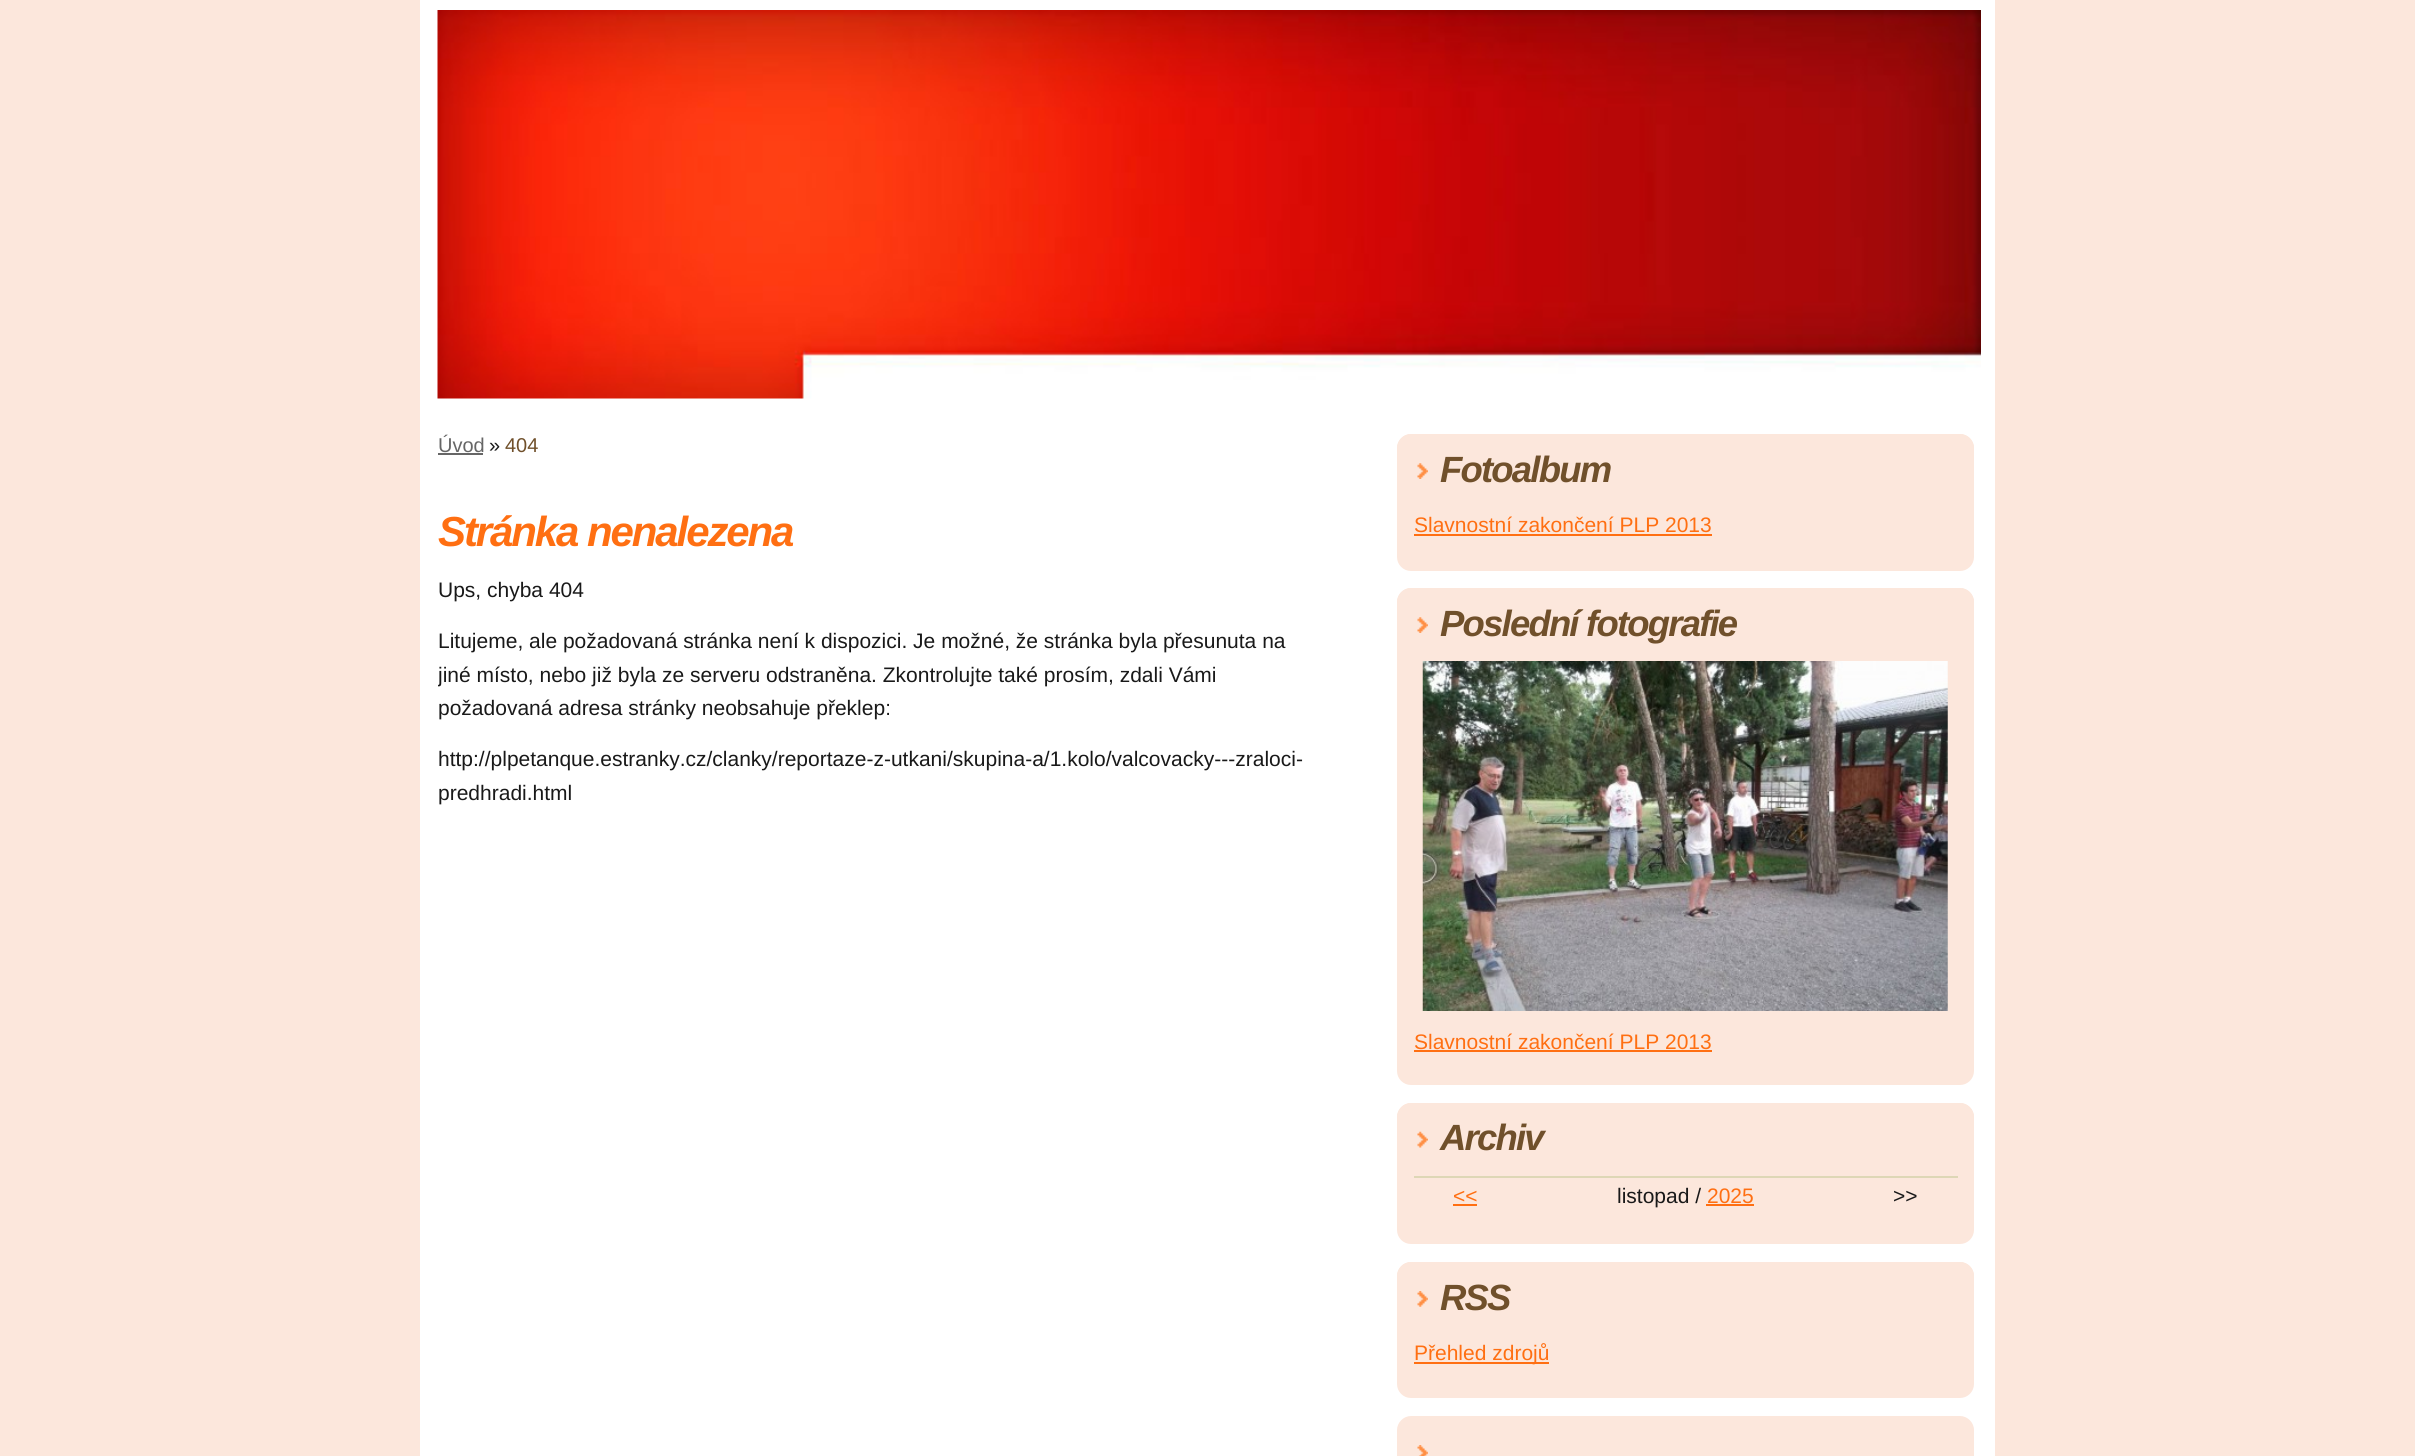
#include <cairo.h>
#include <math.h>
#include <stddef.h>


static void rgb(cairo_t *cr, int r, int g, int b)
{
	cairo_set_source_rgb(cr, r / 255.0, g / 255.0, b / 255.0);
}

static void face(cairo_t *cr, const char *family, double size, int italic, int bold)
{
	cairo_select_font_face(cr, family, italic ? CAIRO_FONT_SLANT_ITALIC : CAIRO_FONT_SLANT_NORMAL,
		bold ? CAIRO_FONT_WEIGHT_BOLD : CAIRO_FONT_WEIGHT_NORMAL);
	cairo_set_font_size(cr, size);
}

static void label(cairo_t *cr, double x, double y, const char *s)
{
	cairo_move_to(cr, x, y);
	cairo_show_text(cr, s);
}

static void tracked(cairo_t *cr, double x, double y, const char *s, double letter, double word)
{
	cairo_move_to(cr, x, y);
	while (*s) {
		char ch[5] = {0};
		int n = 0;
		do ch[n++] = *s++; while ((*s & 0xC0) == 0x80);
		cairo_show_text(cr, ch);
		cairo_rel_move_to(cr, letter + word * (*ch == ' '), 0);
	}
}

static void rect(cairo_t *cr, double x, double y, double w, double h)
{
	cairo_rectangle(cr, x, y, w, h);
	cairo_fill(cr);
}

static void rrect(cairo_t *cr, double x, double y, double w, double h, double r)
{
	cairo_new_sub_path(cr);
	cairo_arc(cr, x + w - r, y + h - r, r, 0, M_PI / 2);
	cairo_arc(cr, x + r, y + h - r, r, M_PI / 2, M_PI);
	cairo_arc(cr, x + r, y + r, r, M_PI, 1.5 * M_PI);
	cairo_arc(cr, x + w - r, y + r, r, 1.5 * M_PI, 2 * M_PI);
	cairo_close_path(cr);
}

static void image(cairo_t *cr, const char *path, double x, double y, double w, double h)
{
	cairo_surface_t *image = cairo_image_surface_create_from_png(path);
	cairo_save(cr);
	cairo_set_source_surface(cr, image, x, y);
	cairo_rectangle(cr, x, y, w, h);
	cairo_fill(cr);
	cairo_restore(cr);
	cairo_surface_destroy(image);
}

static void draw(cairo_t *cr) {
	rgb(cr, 252, 231, 220);
	cairo_paint(cr);
	rgb(cr, 255, 255, 255);
	rect(cr, 420, 0, 1575, 1456);
	image(cr, "image0.png", 437, 10, 1544, 389);
	face(cr, "Liberation Sans", 20, 0, 0);
	rgb(cr, 102, 102, 102);
	label(cr, 438, 452, "Úvod");
	rect(cr, 438, 453, 45, 2);
	rgb(cr, 25, 25, 25);
	label(cr, 489, 452, "»");
	rgb(cr, 112, 80, 43);
	label(cr, 505, 452, "404");
	face(cr, "Liberation Sans", 42, 1, 1);
	rgb(cr, 255, 111, 18);
	tracked(cr, 438, 546, "Stránka nenalezena", -2.1, 0);
	face(cr, "Liberation Sans", 21, 0, 0);
	rgb(cr, 25, 25, 25);
	label(cr, 438, 597, "Ups, chyba 404");
	label(cr, 438, 648, "Litujeme, ale požadovaná stránka není k dispozici. Je možné, že stránka byla přesunuta na");
	cairo_save(cr);
	cairo_rectangle(cr, 438, 490, 875, 347);
	cairo_clip(cr);
	label(cr, 438, 682, "jiné místo, nebo již byla ze serveru odstraněna. Zkontrolujte také prosím, zdali Vámi");
	cairo_restore(cr);
	label(cr, 438, 715, "požadovaná adresa stránky neobsahuje překlep:");
	label(cr, 438, 766, "http://plpetanque.estranky.cz/clanky/reportaze-z-utkani/skupina-a/1.kolo/valcovacky---zraloci-");
	label(cr, 438, 800, "predhradi.html");
	rgb(cr, 252, 231, 220);
	rrect(cr, 1397, 434, 577, 137, 14);
	cairo_fill(cr);
	cairo_new_path(cr);
	cairo_move_to(cr, 1411, 434);
	cairo_line_to(cr, 1960, 434);
	cairo_curve_to(cr, 1967.5, 434, 1974, 440.5, 1974, 448);
	cairo_line_to(cr, 1974, 490);
	cairo_line_to(cr, 1397, 490);
	cairo_line_to(cr, 1397, 448);
	cairo_curve_to(cr, 1397, 440.5, 1403.5, 434, 1411, 434);
	cairo_close_path(cr);
	cairo_fill(cr);
	image(cr, "image1.png", 1417, 463, 11, 16);
	face(cr, "Liberation Sans", 36.5, 1, 1);
	rgb(cr, 112, 80, 43);
	tracked(cr, 1440, 482, "Fotoalbum", -1.8, 0);
	face(cr, "Liberation Sans", 21, 0, 0);
	rgb(cr, 255, 111, 18);
	label(cr, 1414, 532, "Slavnostní zakončení PLP 2013");
	rect(cr, 1414, 534, 298, 2);
	rgb(cr, 252, 231, 220);
	rrect(cr, 1397, 588, 577, 497, 14);
	cairo_fill(cr);
	cairo_new_path(cr);
	cairo_move_to(cr, 1411, 588);
	cairo_line_to(cr, 1960, 588);
	cairo_curve_to(cr, 1967.5, 588, 1974, 594.5, 1974, 602);
	cairo_line_to(cr, 1974, 644);
	cairo_line_to(cr, 1397, 644);
	cairo_line_to(cr, 1397, 602);
	cairo_curve_to(cr, 1397, 594.5, 1403.5, 588, 1411, 588);
	cairo_close_path(cr);
	cairo_fill(cr);
	image(cr, "image1.png", 1417, 617, 11, 16);
	face(cr, "Liberation Sans", 36.5, 1, 1);
	rgb(cr, 112, 80, 43);
	tracked(cr, 1440, 636, "Poslední fotografie", -1.8, 0);
	image(cr, "image2.png", 1422, 661, 526, 350);
	face(cr, "Liberation Sans", 21, 0, 0);
	rgb(cr, 255, 111, 18);
	label(cr, 1414, 1049, "Slavnostní zakončení PLP 2013");
	rect(cr, 1414, 1050, 298, 2);
	rgb(cr, 252, 231, 220);
	rrect(cr, 1397, 1103, 577, 141, 14);
	cairo_fill(cr);
	cairo_new_path(cr);
	cairo_move_to(cr, 1411, 1103);
	cairo_line_to(cr, 1960, 1103);
	cairo_curve_to(cr, 1967.5, 1103, 1974, 1109.5, 1974, 1117);
	cairo_line_to(cr, 1974, 1159);
	cairo_line_to(cr, 1397, 1159);
	cairo_line_to(cr, 1397, 1117);
	cairo_curve_to(cr, 1397, 1109.5, 1403.5, 1103, 1411, 1103);
	cairo_close_path(cr);
	cairo_fill(cr);
	image(cr, "image3.png", 1417, 1131, 11, 17);
	face(cr, "Liberation Sans", 36.5, 1, 1);
	rgb(cr, 112, 80, 43);
	tracked(cr, 1440, 1150, "Archiv", -1.8, 0);
	face(cr, "Liberation Sans", 21, 0, 0);
	rgb(cr, 255, 111, 18);
	label(cr, 1453, 1203, "<<");
	rect(cr, 1453, 1204, 24, 2);
	rgb(cr, 25, 25, 25);
	label(cr, 1617, 1203, "listopad /");
	rgb(cr, 255, 111, 18);
	label(cr, 1707, 1203, "2025");
	rect(cr, 1706, 1204, 48, 2);
	rgb(cr, 222, 215, 182);
	rect(cr, 1414, 1176, 544, 2);
	rgb(cr, 25, 25, 25);
	label(cr, 1893, 1203, ">>");
	rgb(cr, 252, 231, 220);
	rrect(cr, 1397, 1262, 577, 136, 14);
	cairo_fill(cr);
	cairo_new_path(cr);
	cairo_move_to(cr, 1411, 1262);
	cairo_line_to(cr, 1960, 1262);
	cairo_curve_to(cr, 1967.5, 1262, 1974, 1268.5, 1974, 1276);
	cairo_line_to(cr, 1974, 1318);
	cairo_line_to(cr, 1397, 1318);
	cairo_line_to(cr, 1397, 1276);
	cairo_curve_to(cr, 1397, 1268.5, 1403.5, 1262, 1411, 1262);
	cairo_close_path(cr);
	cairo_fill(cr);
	image(cr, "image4.png", 1417, 1291, 11, 16);
	face(cr, "Liberation Sans", 36.5, 1, 1);
	rgb(cr, 112, 80, 43);
	tracked(cr, 1440, 1310, "RSS", -1.8, 0);
	rgb(cr, 255, 111, 18);
	rect(cr, 1414, 1362, 135, 2);
	face(cr, "Liberation Sans", 21, 0, 0);
	label(cr, 1414, 1360, "Přehled zdrojů");
	rgb(cr, 252, 231, 220);
	cairo_new_path(cr);
	cairo_move_to(cr, 1411, 1416);
	cairo_line_to(cr, 1960, 1416);
	cairo_curve_to(cr, 1967.5, 1416, 1974, 1422.5, 1974, 1430);
	cairo_line_to(cr, 1974, 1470);
	cairo_line_to(cr, 1397, 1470);
	cairo_line_to(cr, 1397, 1430);
	cairo_curve_to(cr, 1397, 1422.5, 1403.5, 1416, 1411, 1416);
	cairo_close_path(cr);
	cairo_fill(cr);
	image(cr, "image5.png", 1417, 1445, 11, 11);
}

int main(void) {
	cairo_surface_t *surface = cairo_image_surface_create(CAIRO_FORMAT_RGB24, 2415, 1456);
	cairo_t *cr = cairo_create(surface);
	cairo_font_options_t *options = cairo_font_options_create();
	cairo_font_options_set_hint_metrics(options, CAIRO_HINT_METRICS_OFF);
	cairo_font_options_set_hint_style(options, CAIRO_HINT_STYLE_NONE);
	cairo_set_font_options(cr, options);
	cairo_set_miter_limit(cr, 4);
	draw(cr);
	cairo_surface_write_to_png(surface, "render.png");
	cairo_font_options_destroy(options);
	cairo_destroy(cr);
	cairo_surface_destroy(surface);
	return 0;
}
